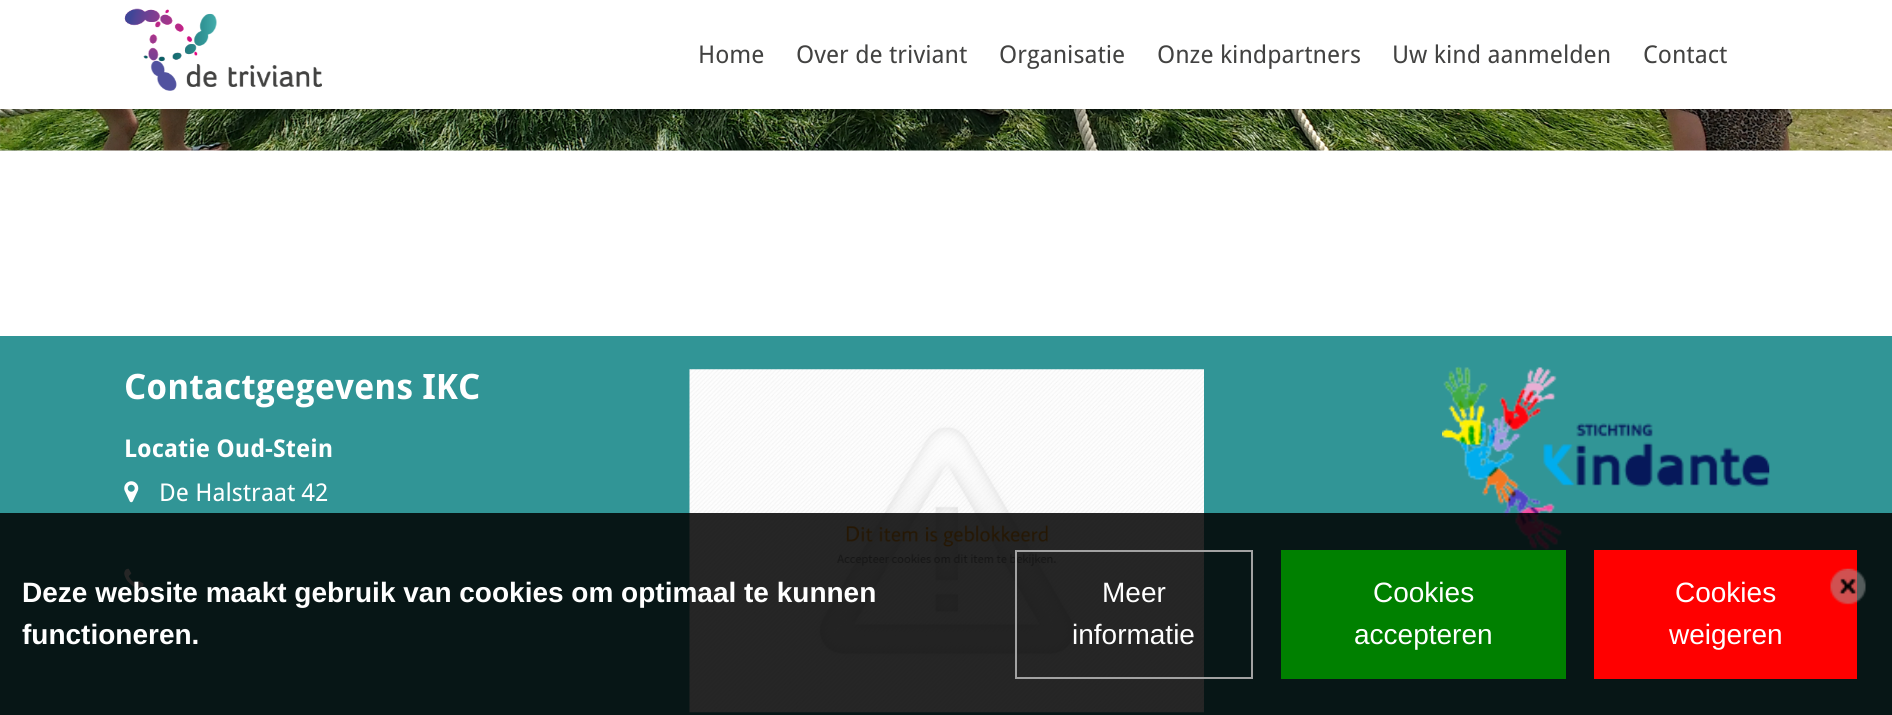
#include <cairo.h>
#include <math.h>
#include <stddef.h>


static void rgb(cairo_t *cr, int r, int g, int b)
{
	cairo_set_source_rgb(cr, r / 255.0, g / 255.0, b / 255.0);
}

static void face(cairo_t *cr, const char *family, double size, int italic, int bold)
{
	cairo_select_font_face(cr, family, italic ? CAIRO_FONT_SLANT_ITALIC : CAIRO_FONT_SLANT_NORMAL,
		bold ? CAIRO_FONT_WEIGHT_BOLD : CAIRO_FONT_WEIGHT_NORMAL);
	cairo_set_font_size(cr, size);
}

static void label(cairo_t *cr, double x, double y, const char *s)
{
	cairo_move_to(cr, x, y);
	cairo_show_text(cr, s);
}

static void rect(cairo_t *cr, double x, double y, double w, double h)
{
	cairo_rectangle(cr, x, y, w, h);
	cairo_fill(cr);
}

static void rrect(cairo_t *cr, double x, double y, double w, double h, double r)
{
	cairo_new_sub_path(cr);
	cairo_arc(cr, x + w - r, y + h - r, r, 0, M_PI / 2);
	cairo_arc(cr, x + r, y + h - r, r, M_PI / 2, M_PI);
	cairo_arc(cr, x + r, y + r, r, M_PI, 1.5 * M_PI);
	cairo_arc(cr, x + w - r, y + r, r, 1.5 * M_PI, 2 * M_PI);
	cairo_close_path(cr);
}

static void soft_shadow(cairo_t *cr, double x, double y, double w, double h, double r, double blur, double alpha)
{
	cairo_push_group_with_content(cr, CAIRO_CONTENT_ALPHA);
	cairo_set_operator(cr, CAIRO_OPERATOR_SOURCE);
	for (int i = 15; i >= -15 && fmin(w, h) + blur * i / 3 > 0; i -= 2) {
		double e = blur * i / 6;
		cairo_set_source_rgba(cr, 0, 0, 0, alpha * erfc((i - 1) / 8.5) / 2);
		rrect(cr, x - e, y - e, w + 2 * e, h + 2 * e, fmax(0, fmin(r + e + blur * .6, fmin(w, h) / 2 + e)));
		cairo_fill(cr);
	}
	cairo_pattern_t *soft = cairo_pop_group(cr);
	cairo_mask(cr, soft);
	cairo_pattern_destroy(soft);
}

static void image(cairo_t *cr, const char *path, double x, double y, double w, double h)
{
	cairo_surface_t *image = cairo_image_surface_create_from_png(path);
	cairo_save(cr);
	cairo_set_source_surface(cr, image, x, y);
	cairo_rectangle(cr, x, y, w, h);
	cairo_fill(cr);
	cairo_restore(cr);
	cairo_surface_destroy(image);
}

static void draw(cairo_t *cr) {
	rgb(cr, 255, 255, 255);
	cairo_paint(cr);
	image(cr, "image1.png", 0, 109, 1892, 42);
	rgb(cr, 0, 0, 0);
	soft_shadow(cr, 0, 4, 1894, 108, 0, 4.5, 0.2);
	rgb(cr, 255, 255, 255);
	rect(cr, 0, 0, 1892, 109);
	image(cr, "image0.png", 124, 8, 198, 83);
	face(cr, "Droid Sans", 24.5, 0, 0);
	rgb(cr, 66, 66, 65);
	label(cr, 698, 63, "Home");
	label(cr, 796, 63, "Over de triviant");
	label(cr, 999, 63, "Organisatie");
	label(cr, 1157, 63, "Onze kindpartners");
	label(cr, 1392, 63, "Uw kind aanmelden");
	label(cr, 1643, 63, "Contact");
	rgb(cr, 49, 149, 150);
	rect(cr, 0, 336, 1892, 379);
	face(cr, "Droid Sans", 35, 0, 1);
	rgb(cr, 255, 255, 255);
	label(cr, 124, 399, "Contactgegevens IKC");
	face(cr, "Droid Sans", 24.5, 0, 1);
	label(cr, 124, 457, "Locatie Oud-Stein");
	image(cr, "image2.png", 124, 481, 15, 22);
	face(cr, "Droid Sans", 24.5, 0, 0);
	label(cr, 159, 501, "De Halstraat 42");
	image(cr, "image3.png", 124, 568, 20, 20);
	image(cr, "image4.png", 689, 369, 515, 344);
	image(cr, "image5.png", 1442, 366, 328, 184);
	cairo_set_source_rgba(cr, 0, 0, 0, 0.85);
	rect(cr, 0, 513, 1892, 202);
	face(cr, "Liberation Sans", 28, 0, 1);
	rgb(cr, 255, 255, 255);
	label(cr, 22, 602, "Deze website maakt gebruik van cookies om optimaal te kunnen");
	label(cr, 22, 644, "functioneren.");
	cairo_rectangle(cr, 1016, 551, 236, 127);
	rgb(cr, 162, 162, 162);
	cairo_stroke(cr);
	face(cr, "Liberation Sans", 28, 0, 0);
	rgb(cr, 255, 255, 255);
	label(cr, 1102, 602, "Meer");
	label(cr, 1072, 644, "informatie");
	rgb(cr, 0, 128, 0);
	rect(cr, 1281, 550, 285, 129);
	rgb(cr, 255, 255, 255);
	label(cr, 1373, 602, "Cookies");
	label(cr, 1354, 644, "accepteren");
	rgb(cr, 255, 0, 0);
	rect(cr, 1594, 550, 263, 129);
	rgb(cr, 255, 255, 255);
	label(cr, 1675, 602, "Cookies");
	label(cr, 1669, 644, "weigeren");
	image(cr, "image6.png", 1830, 568, 36, 37);
}

int main(void) {
	cairo_surface_t *surface = cairo_image_surface_create(CAIRO_FORMAT_RGB24, 1892, 715);
	cairo_t *cr = cairo_create(surface);
	cairo_font_options_t *options = cairo_font_options_create();
	cairo_font_options_set_hint_metrics(options, CAIRO_HINT_METRICS_OFF);
	cairo_font_options_set_hint_style(options, CAIRO_HINT_STYLE_NONE);
	cairo_set_font_options(cr, options);
	cairo_set_miter_limit(cr, 4);
	draw(cr);
	cairo_surface_write_to_png(surface, "render.png");
	cairo_font_options_destroy(options);
	cairo_destroy(cr);
	cairo_surface_destroy(surface);
	return 0;
}
